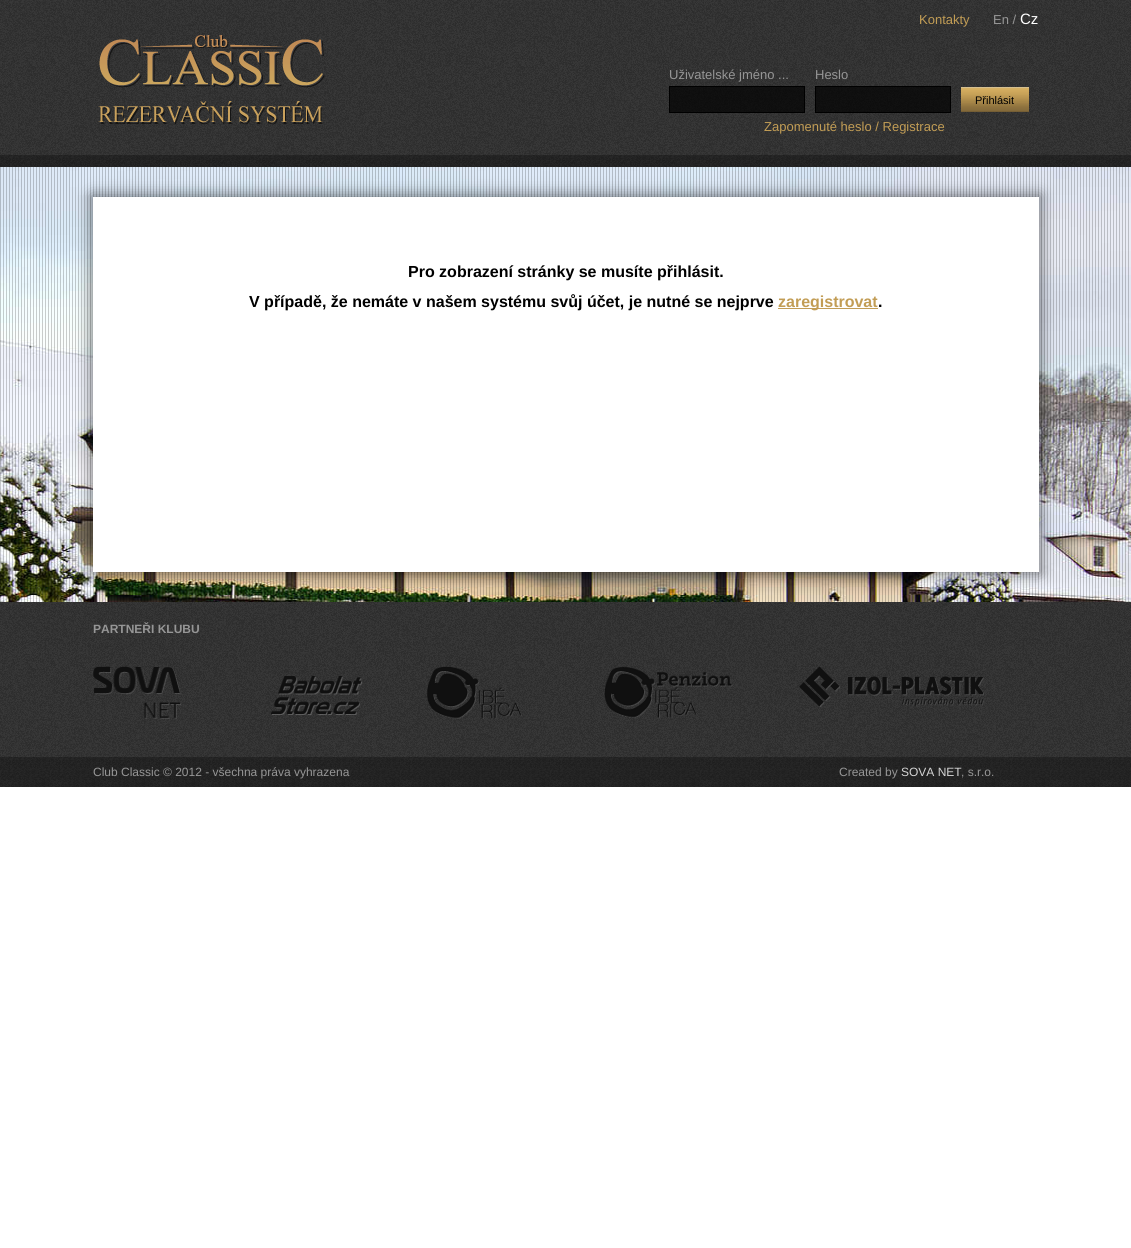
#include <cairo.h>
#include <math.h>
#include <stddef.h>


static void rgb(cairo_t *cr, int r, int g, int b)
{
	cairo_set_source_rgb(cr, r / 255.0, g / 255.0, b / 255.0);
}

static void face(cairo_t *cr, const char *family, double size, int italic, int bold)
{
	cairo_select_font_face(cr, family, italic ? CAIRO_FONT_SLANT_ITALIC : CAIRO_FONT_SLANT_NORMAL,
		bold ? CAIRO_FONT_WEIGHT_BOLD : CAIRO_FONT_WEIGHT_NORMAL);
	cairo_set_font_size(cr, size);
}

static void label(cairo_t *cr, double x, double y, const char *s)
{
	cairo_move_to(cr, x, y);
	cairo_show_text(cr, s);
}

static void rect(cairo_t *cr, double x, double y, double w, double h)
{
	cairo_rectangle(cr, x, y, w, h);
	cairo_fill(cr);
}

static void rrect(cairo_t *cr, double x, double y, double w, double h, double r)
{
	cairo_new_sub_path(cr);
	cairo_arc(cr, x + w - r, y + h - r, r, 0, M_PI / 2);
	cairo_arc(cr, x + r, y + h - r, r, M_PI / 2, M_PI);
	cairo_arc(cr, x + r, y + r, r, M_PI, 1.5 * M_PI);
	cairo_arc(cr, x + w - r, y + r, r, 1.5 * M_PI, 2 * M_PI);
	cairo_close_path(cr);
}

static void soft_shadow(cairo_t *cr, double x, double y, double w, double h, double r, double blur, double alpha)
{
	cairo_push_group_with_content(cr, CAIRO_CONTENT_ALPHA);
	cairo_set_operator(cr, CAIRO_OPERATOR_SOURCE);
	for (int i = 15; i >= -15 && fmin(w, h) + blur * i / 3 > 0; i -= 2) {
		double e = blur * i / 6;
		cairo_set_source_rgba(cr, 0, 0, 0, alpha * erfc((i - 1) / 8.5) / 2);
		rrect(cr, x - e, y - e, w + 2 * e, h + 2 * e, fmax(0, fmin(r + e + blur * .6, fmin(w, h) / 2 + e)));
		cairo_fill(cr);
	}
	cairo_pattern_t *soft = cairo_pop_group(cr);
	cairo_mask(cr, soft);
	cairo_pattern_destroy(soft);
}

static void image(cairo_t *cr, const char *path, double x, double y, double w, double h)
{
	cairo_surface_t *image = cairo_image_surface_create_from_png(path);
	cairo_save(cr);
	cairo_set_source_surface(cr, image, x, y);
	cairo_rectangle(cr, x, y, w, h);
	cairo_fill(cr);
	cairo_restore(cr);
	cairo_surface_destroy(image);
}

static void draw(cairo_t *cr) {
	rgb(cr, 255, 255, 255);
	cairo_paint(cr);
	image(cr, "image0.png", 0, 0, 1131, 155);
	image(cr, "image1.png", 98, 35, 227, 90);
	face(cr, "Liberation Sans", 13, 0, 0);
	rgb(cr, 194, 157, 85);
	label(cr, 919, 24, "Kontakty");
	rgb(cr, 150, 150, 150);
	label(cr, 993, 24, "En /");
	face(cr, "Liberation Sans", 15, 0, 0);
	rgb(cr, 255, 255, 255);
	label(cr, 1020, 24, "Cz");
	face(cr, "Liberation Sans", 13, 0, 0);
	rgb(cr, 150, 150, 150);
	label(cr, 669, 79, "Uživatelské jméno ...");
	cairo_set_source_rgba(cr, 0, 0, 0, 0.7);
	cairo_rectangle(cr, 669.5, 86.5, 135, 26);
	cairo_fill_preserve(cr);
	rgb(cr, 0, 0, 0);
	cairo_set_line_width(cr, 1);
	cairo_stroke(cr);
	rgb(cr, 150, 150, 150);
	label(cr, 815, 79, "Heslo");
	cairo_set_source_rgba(cr, 0, 0, 0, 0.7);
	cairo_rectangle(cr, 815.5, 86.5, 135, 26);
	cairo_fill_preserve(cr);
	rgb(cr, 0, 0, 0);
	cairo_stroke(cr);
	rgb(cr, 118, 95, 53);
	rect(cr, 961, 111, 68, 1);
	image(cr, "image2.png", 961, 87, 68, 24);
	face(cr, "Liberation Sans", 11, 0, 0);
	rgb(cr, 0, 0, 0);
	label(cr, 975, 104, "Přihlásit");
	face(cr, "Liberation Sans", 13, 0, 0);
	rgb(cr, 194, 157, 85);
	label(cr, 764, 131, "Zapomenuté heslo / Registrace");
	image(cr, "image3.png", 0, 155, 1131, 12);
	image(cr, "image4.png", 0, 167, 1131, 435);
	image(cr, "image5.png", 0, 167, 1129, 435);
	rgb(cr, 0, 0, 0);
	soft_shadow(cr, 91, 195, 950, 379, 0, 7.5, 0.5);
	rgb(cr, 255, 255, 255);
	rect(cr, 93, 197, 946, 375);
	face(cr, "Liberation Sans", 16, 0, 1);
	rgb(cr, 0, 0, 0);
	label(cr, 408, 277, "Pro zobrazení stránky se musíte přihlásit.");
	label(cr, 249, 307, "V případě, že nemáte v našem systému svůj účet, je nutné se nejprve");
	rgb(cr, 194, 157, 85);
	rect(cr, 778, 308, 100, 1);
	label(cr, 778, 307, "zaregistrovat");
	rgb(cr, 0, 0, 0);
	label(cr, 878, 307, ".");
	image(cr, "image0.png", 0, 602, 1131, 155);
	face(cr, "Liberation Sans", 12, 0, 1);
	rgb(cr, 150, 150, 150);
	label(cr, 93, 633, "PARTNEŘI KLUBU");
	image(cr, "image6.png", 93, 666, 88, 53);
	image(cr, "image7.png", 271, 676, 91, 39);
	image(cr, "image8.png", 427, 666, 95, 53);
	image(cr, "image9.png", 604, 667, 129, 52);
	image(cr, "image10.png", 799, 666, 185, 41);
	image(cr, "image11.png", 0, 757, 1131, 30);
	face(cr, "Liberation Sans", 12, 0, 0);
	label(cr, 93, 776, "Club Classic © 2012 - všechna práva vyhrazena");
	label(cr, 839, 776, "Created by");
	rgb(cr, 212, 212, 212);
	label(cr, 901, 776, "SOVA NET");
	rgb(cr, 150, 150, 150);
	label(cr, 961, 776, ", s.r.o.");
}

int main(void) {
	cairo_surface_t *surface = cairo_image_surface_create(CAIRO_FORMAT_RGB24, 1131, 1248);
	cairo_t *cr = cairo_create(surface);
	cairo_font_options_t *options = cairo_font_options_create();
	cairo_font_options_set_hint_metrics(options, CAIRO_HINT_METRICS_OFF);
	cairo_font_options_set_hint_style(options, CAIRO_HINT_STYLE_NONE);
	cairo_set_font_options(cr, options);
	cairo_set_miter_limit(cr, 4);
	draw(cr);
	cairo_surface_write_to_png(surface, "render.png");
	cairo_font_options_destroy(options);
	cairo_destroy(cr);
	cairo_surface_destroy(surface);
	return 0;
}
